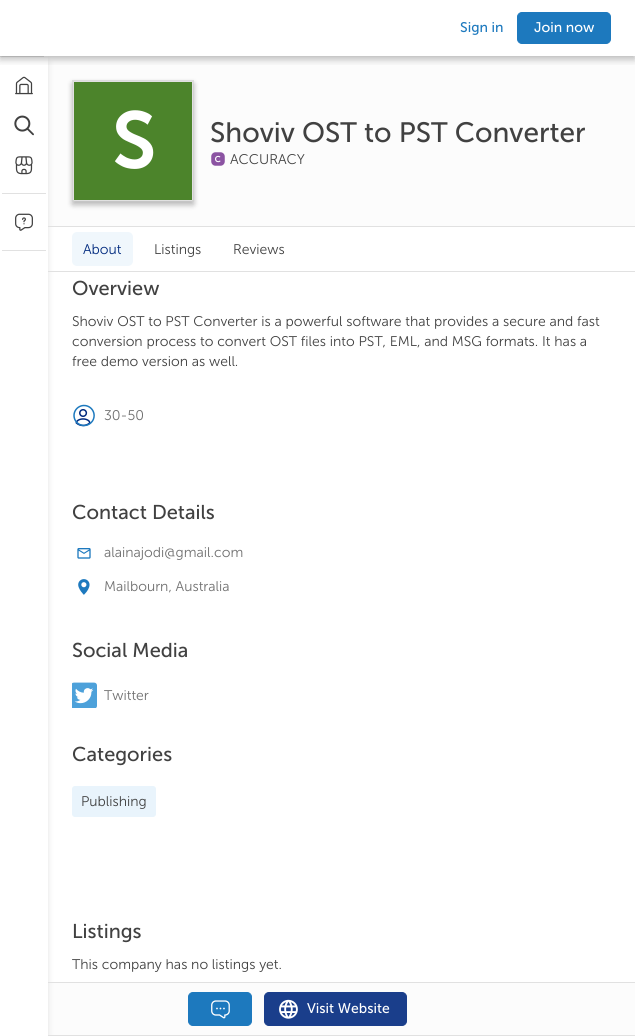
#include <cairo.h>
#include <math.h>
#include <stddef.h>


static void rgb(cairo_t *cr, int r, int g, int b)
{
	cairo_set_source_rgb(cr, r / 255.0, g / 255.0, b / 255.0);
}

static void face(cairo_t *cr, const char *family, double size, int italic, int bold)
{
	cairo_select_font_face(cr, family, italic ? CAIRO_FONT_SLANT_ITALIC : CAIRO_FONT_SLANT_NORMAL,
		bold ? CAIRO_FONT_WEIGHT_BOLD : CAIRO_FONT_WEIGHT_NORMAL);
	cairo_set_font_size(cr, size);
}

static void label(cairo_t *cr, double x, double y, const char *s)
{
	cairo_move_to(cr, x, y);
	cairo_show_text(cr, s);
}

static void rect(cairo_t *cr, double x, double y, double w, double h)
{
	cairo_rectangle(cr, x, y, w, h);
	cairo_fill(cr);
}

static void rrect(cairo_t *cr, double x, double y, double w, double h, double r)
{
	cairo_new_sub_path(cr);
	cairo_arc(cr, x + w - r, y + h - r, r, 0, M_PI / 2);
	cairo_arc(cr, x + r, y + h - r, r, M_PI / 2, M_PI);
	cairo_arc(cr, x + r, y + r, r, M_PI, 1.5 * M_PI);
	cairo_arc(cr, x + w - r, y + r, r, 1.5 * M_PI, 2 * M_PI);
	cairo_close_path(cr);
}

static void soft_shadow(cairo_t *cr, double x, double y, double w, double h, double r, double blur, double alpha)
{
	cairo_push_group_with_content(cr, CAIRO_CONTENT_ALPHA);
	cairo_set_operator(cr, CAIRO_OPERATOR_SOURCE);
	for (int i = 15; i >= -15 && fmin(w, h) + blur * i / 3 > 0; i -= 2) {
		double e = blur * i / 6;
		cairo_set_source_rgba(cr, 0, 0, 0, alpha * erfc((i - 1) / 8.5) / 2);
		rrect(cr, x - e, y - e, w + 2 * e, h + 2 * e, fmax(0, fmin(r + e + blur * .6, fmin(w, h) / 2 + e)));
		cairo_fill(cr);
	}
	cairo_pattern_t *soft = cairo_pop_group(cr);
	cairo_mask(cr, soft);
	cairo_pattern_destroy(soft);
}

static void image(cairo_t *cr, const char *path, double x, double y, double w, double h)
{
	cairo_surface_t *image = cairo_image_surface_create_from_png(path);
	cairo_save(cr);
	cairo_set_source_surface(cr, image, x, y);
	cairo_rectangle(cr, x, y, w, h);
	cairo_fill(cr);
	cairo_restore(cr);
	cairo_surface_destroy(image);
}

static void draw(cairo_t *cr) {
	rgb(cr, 255, 255, 255);
	cairo_paint(cr);
	rgb(cr, 252, 252, 252);
	rect(cr, 48, 56, 587, 170);
	rgb(cr, 225, 225, 225);
	rect(cr, 48, 226, 587, 1);
	rect(cr, 48, 271, 587, 1);
	rgb(cr, 252, 252, 252);
	rect(cr, 48, 983, 587, 52);
	rgb(cr, 225, 225, 225);
	rect(cr, 48, 982, 587, 1);
	rect(cr, 48, 1035, 587, 1);
	rgb(cr, 225, 225, 225);
	soft_shadow(cr, 0, 62, 48, 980, 0, 3, 1);
	rgb(cr, 255, 255, 255);
	rect(cr, 0, 58, 48, 978);
	rgb(cr, 225, 225, 225);
	rect(cr, 0, 56, 44, 1);
	cairo_save(cr);
	cairo_rectangle(cr, 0, 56, 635, 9);
	cairo_clip(cr);
	rgb(cr, 0, 0, 0);
	soft_shadow(cr, 0, 3, 635, 56, 0, 4, 0.28);
	cairo_restore(cr);
	face(cr, "Museo Sans", 14, 0, 0);
	rgb(cr, 29, 121, 190);
	label(cr, 460, 32, "Sign in");
	rrect(cr, 517.5, 12.5, 93, 31, 4.5);
	cairo_fill_preserve(cr);
	cairo_set_line_width(cr, 1);
	cairo_stroke(cr);
	rgb(cr, 255, 255, 255);
	label(cr, 534, 32, "Join now");
	image(cr, "image0.png", 15, 76, 18, 19);
	image(cr, "image1.png", 14, 115, 20, 21);
	image(cr, "image2.png", 15, 156, 18, 19);
	rgb(cr, 225, 225, 225);
	rect(cr, 2, 193, 44, 1);
	image(cr, "image3.png", 15, 213, 18, 18);
	rect(cr, 2, 250, 44, 1);
	rgb(cr, 0, 0, 0);
	soft_shadow(cr, 72, 83, 122, 122, 0, 3, 0.16);
	cairo_rectangle(cr, 72.5, 80.5, 121, 121);
	rgb(cr, 225, 225, 225);
	cairo_stroke(cr);
	rgb(cr, 0, 0, 0);
	soft_shadow(cr, 73, 84, 120, 120, 1, 3, 0.16);
	rgb(cr, 76, 132, 43);
	rrect(cr, 73.5, 81.5, 119, 119, 0.5);
	cairo_fill_preserve(cr);
	rgb(cr, 225, 225, 225);
	cairo_stroke(cr);
	face(cr, "Museo Sans SemiBold", 80, 0, 0);
	rgb(cr, 255, 255, 255);
	label(cr, 112, 168, "S");
	face(cr, "Museo Sans", 28, 0, 0);
	rgb(cr, 65, 65, 65);
	label(cr, 210, 142, "Shoviv OST to PST Converter");
	image(cr, "image4.png", 211, 152, 14, 14);
	image(cr, "image5.png", 215, 155, 6, 8);
	face(cr, "Museo Sans Light", 14, 0, 0);
	label(cr, 230, 164, "ACCURACY");
	rgb(cr, 240, 247, 252);
	rrect(cr, 72, 232, 61, 34, 5);
	cairo_fill(cr);
	rgb(cr, 0, 41, 126);
	label(cr, 83, 254, "About");
	rgb(cr, 65, 65, 65);
	label(cr, 154, 254, "Listings");
	label(cr, 233, 254, "Reviews");
	rgb(cr, 29, 121, 190);
	rrect(cr, 188.5, 992.5, 63, 33, 4.5);
	cairo_fill_preserve(cr);
	cairo_stroke(cr);
	image(cr, "image6.png", 211, 1000, 19, 19);
	rgb(cr, 26, 62, 139);
	rrect(cr, 264.5, 992.5, 142, 33, 4.5);
	cairo_fill_preserve(cr);
	cairo_stroke(cr);
	image(cr, "image7.png", 279, 999, 19, 20);
	face(cr, "Museo Sans", 14, 0, 0);
	rgb(cr, 255, 255, 255);
	label(cr, 307, 1013, "Visit Website");
	face(cr, "Museo Sans", 20, 0, 0);
	rgb(cr, 65, 65, 65);
	label(cr, 72, 295, "Overview");
	face(cr, "Museo Sans Light", 14, 0, 0);
	label(cr, 72, 326, "Shoviv OST to PST Converter is a powerful software that provides a secure and fast");
	label(cr, 72, 346, "conversion process to convert OST files into PST, EML, and MSG formats. It has a");
	label(cr, 72, 366, "free demo version as well.");
	image(cr, "image9.png", 75, 409, 16, 18);
	image(cr, "image8.png", 73, 404, 22, 23);
	rgb(cr, 112, 112, 112);
	label(cr, 104, 420, "30-50");
	face(cr, "Museo Sans", 20, 0, 0);
	rgb(cr, 65, 65, 65);
	label(cr, 72, 519, "Contact Details");
	image(cr, "image10.png", 77, 548, 14, 11);
	face(cr, "Museo Sans Light", 14, 0, 0);
	rgb(cr, 112, 112, 112);
	label(cr, 104, 557, "alainajodi@gmail.com");
	image(cr, "image11.png", 78, 579, 12, 16);
	label(cr, 104, 591, "Mailbourn, Australia");
	face(cr, "Museo Sans", 20, 0, 0);
	rgb(cr, 65, 65, 65);
	label(cr, 72, 657, "Social Media");
	image(cr, "image12.png", 72, 682, 25, 26);
	face(cr, "Museo Sans Light", 14, 0, 0);
	rgb(cr, 112, 112, 112);
	label(cr, 104, 700, "Twitter");
	face(cr, "Museo Sans", 20, 0, 0);
	rgb(cr, 65, 65, 65);
	label(cr, 72, 761, "Categories");
	rgb(cr, 233, 244, 252);
	rrect(cr, 72.5, 786.5, 83, 30, 2.5);
	cairo_fill_preserve(cr);
	cairo_stroke(cr);
	face(cr, "Museo Sans Light", 14, 0, 0);
	rgb(cr, 65, 65, 65);
	label(cr, 81, 806, "Publishing");
	face(cr, "Museo Sans", 20, 0, 0);
	label(cr, 72, 938, "Listings");
	face(cr, "Museo Sans Light", 14, 0, 0);
	label(cr, 72, 969, "This company has no listings yet.");
}

int main(void) {
	cairo_surface_t *surface = cairo_image_surface_create(CAIRO_FORMAT_RGB24, 635, 1036);
	cairo_t *cr = cairo_create(surface);
	cairo_font_options_t *options = cairo_font_options_create();
	cairo_font_options_set_hint_metrics(options, CAIRO_HINT_METRICS_OFF);
	cairo_font_options_set_hint_style(options, CAIRO_HINT_STYLE_NONE);
	cairo_set_font_options(cr, options);
	cairo_set_miter_limit(cr, 4);
	draw(cr);
	cairo_surface_write_to_png(surface, "render.png");
	cairo_font_options_destroy(options);
	cairo_destroy(cr);
	cairo_surface_destroy(surface);
	return 0;
}
